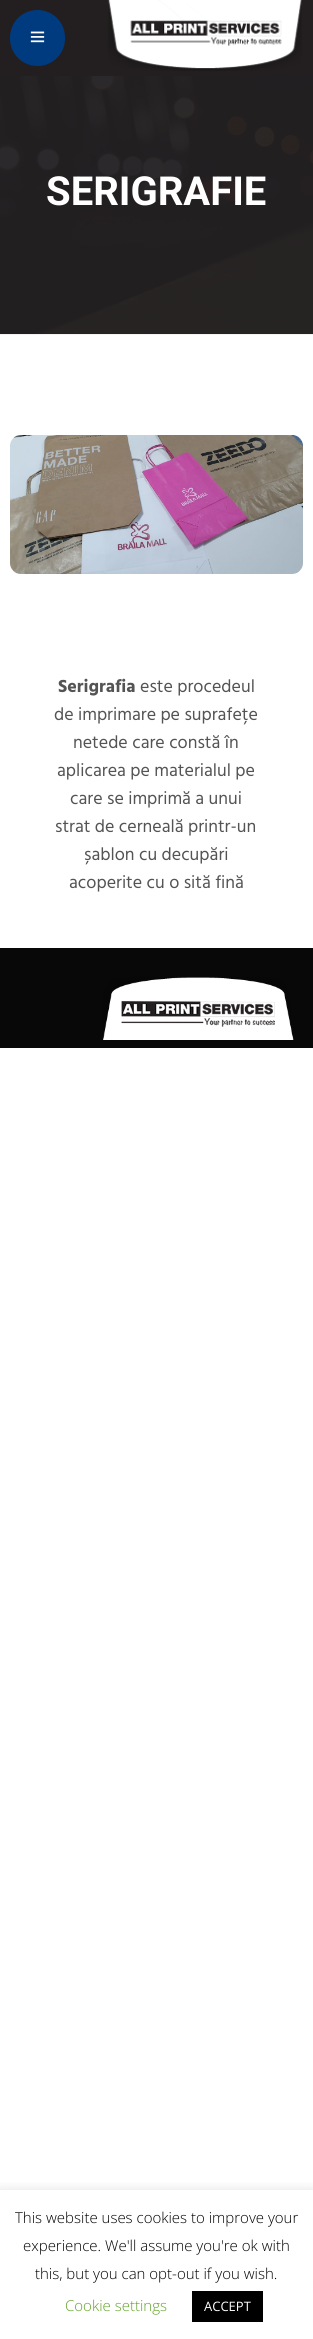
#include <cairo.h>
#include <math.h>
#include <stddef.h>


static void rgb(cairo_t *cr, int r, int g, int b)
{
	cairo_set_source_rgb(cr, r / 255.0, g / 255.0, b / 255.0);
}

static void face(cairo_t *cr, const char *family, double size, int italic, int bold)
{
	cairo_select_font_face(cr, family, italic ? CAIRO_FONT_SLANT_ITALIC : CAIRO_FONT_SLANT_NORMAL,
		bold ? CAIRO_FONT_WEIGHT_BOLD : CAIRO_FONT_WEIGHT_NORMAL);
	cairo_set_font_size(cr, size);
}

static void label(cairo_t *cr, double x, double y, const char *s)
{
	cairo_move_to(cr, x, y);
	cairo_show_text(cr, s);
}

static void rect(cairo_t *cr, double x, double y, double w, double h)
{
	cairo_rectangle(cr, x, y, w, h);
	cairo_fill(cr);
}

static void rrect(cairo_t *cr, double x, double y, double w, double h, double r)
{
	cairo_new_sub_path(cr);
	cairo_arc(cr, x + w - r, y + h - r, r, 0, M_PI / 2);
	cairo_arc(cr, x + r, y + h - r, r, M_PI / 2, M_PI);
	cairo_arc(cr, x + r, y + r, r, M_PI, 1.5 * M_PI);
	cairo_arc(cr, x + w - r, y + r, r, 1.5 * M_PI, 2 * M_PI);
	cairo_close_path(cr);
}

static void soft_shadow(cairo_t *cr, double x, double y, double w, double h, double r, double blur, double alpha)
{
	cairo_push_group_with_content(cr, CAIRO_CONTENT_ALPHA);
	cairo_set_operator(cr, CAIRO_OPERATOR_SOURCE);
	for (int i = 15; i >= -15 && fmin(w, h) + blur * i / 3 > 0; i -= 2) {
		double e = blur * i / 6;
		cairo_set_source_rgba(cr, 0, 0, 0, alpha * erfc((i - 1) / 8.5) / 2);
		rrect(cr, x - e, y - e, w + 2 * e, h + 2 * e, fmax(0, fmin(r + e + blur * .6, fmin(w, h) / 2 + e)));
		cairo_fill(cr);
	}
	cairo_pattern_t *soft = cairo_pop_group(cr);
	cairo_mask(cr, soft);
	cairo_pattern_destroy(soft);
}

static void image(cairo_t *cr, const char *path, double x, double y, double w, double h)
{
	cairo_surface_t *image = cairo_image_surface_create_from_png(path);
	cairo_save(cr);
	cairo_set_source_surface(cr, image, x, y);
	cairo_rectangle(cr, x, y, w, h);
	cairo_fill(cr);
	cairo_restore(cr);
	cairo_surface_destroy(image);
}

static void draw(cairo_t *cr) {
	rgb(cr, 255, 255, 255);
	cairo_paint(cr);
	rgb(cr, 35, 31, 32);
	rect(cr, 0, 0, 313, 76);
	rgb(cr, 0, 59, 127);
	rrect(cr, 10, 10, 55, 56, 27.5);
	cairo_fill(cr);
	image(cr, "image0.png", 30, 31, 15, 12);
	image(cr, "image1.png", 108, 0, 194, 71);
	image(cr, "image2.png", 0, 76, 313, 258);
	rgb(cr, 242, 242, 242);
	rect(cr, 0, 334, 313, 1);
	face(cr, "Roboto", 40, 0, 1);
	rgb(cr, 255, 255, 255);
	label(cr, 46, 205, "SERIGRAFIE");
	image(cr, "image3.png", 10, 435, 293, 139);
	face(cr, "Hind", 18, 0, 1);
	rgb(cr, 84, 84, 84);
	label(cr, 58, 692, "Serigrafia");
	face(cr, "Hind", 18, 0, 0);
	label(cr, 140, 692, "este procedeul");
	label(cr, 54, 720, "de imprimare pe suprafețe");
	label(cr, 73, 748, "netede care constă în");
	label(cr, 57, 776, "aplicarea pe materialul pe");
	label(cr, 70, 804, "care se imprimă a unui");
	label(cr, 55, 832, "strat de cerneală printr-un");
	label(cr, 84, 860, "șablon cu decupări");
	label(cr, 69, 888, "acoperite cu o sită fină");
	rgb(cr, 9, 8, 8);
	rect(cr, 0, 948, 313, 100);
	image(cr, "image4.png", 103, 977, 191, 63);
	cairo_save(cr);
	cairo_rectangle(cr, 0, 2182, 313, 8);
	cairo_clip(cr);
	rgb(cr, 172, 171, 171);
	soft_shadow(cr, 0, 2189, 313, 149, 0, 5, 0.3);
	cairo_restore(cr);
	face(cr, "Open Sans Light", 15, 0, 0);
	rgb(cr, 0, 0, 0);
	label(cr, 15, 2223, "This website uses cookies to improve your");
	label(cr, 23, 2251, "experience. We'll assume you're ok with");
	label(cr, 35, 2279, "this, but you can opt-out if you wish.");
	rgb(cr, 98, 163, 41);
	label(cr, 65, 2311, "Cookie settings");
	rgb(cr, 0, 0, 0);
	rect(cr, 192, 2291, 71, 31);
	face(cr, "Open Sans", 13, 0, 0);
	rgb(cr, 255, 255, 255);
	label(cr, 204, 2311, "ACCEPT");
}

int main(void) {
	cairo_surface_t *surface = cairo_image_surface_create(CAIRO_FORMAT_RGB24, 313, 2339);
	cairo_t *cr = cairo_create(surface);
	cairo_font_options_t *options = cairo_font_options_create();
	cairo_font_options_set_hint_metrics(options, CAIRO_HINT_METRICS_OFF);
	cairo_font_options_set_hint_style(options, CAIRO_HINT_STYLE_NONE);
	cairo_set_font_options(cr, options);
	cairo_set_miter_limit(cr, 4);
	draw(cr);
	cairo_surface_write_to_png(surface, "render.png");
	cairo_font_options_destroy(options);
	cairo_destroy(cr);
	cairo_surface_destroy(surface);
	return 0;
}
